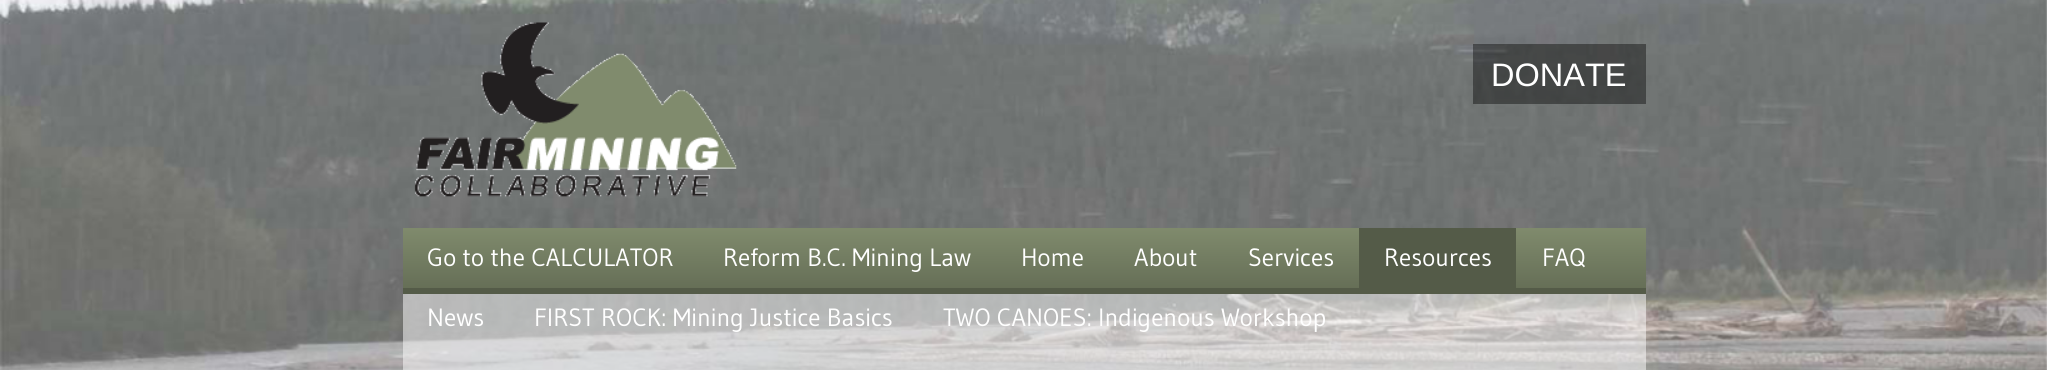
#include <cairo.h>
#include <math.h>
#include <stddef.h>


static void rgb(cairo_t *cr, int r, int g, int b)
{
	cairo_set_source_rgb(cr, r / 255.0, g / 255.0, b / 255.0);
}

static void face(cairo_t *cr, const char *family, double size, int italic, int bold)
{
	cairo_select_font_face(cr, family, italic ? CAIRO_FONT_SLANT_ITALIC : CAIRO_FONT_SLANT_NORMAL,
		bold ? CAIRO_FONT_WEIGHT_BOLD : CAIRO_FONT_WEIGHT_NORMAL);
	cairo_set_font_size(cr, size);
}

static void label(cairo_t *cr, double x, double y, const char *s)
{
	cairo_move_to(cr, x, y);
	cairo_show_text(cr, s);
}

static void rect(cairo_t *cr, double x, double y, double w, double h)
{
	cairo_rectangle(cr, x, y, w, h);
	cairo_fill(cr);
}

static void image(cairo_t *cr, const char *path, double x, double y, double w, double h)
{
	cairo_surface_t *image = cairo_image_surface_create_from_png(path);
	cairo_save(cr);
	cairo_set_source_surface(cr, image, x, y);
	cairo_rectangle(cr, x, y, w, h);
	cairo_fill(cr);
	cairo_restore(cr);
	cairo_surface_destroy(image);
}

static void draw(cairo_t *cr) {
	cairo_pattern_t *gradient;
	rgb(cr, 255, 255, 255);
	cairo_paint(cr);
	image(cr, "image0.png", 0, 0, 2047, 370);
	image(cr, "image1.png", 414, 22, 323, 175);
	cairo_set_source_rgba(cr, 0, 0, 0, 0.4);
	rect(cr, 1473, 44, 173, 60);
	face(cr, "Liberation Sans", 32.5, 0, 0);
	rgb(cr, 255, 255, 255);
	label(cr, 1491, 86, "DONATE");
	gradient = cairo_pattern_create_linear(1024, 227, 1024, 288);
	cairo_pattern_add_color_stop_rgba(gradient, 0, 0.502, 0.545, 0.427, 1);
	cairo_pattern_add_color_stop_rgba(gradient, 1, 0.4, 0.435, 0.341, 1);
	cairo_set_source(cr, gradient);
	cairo_pattern_destroy(gradient);
	rect(cr, 403, 228, 1243, 60);
	rgb(cr, 84, 91, 72);
	rect(cr, 403, 288, 1243, 6);
	face(cr, "Gudea", 25, 0, 0);
	rgb(cr, 255, 255, 255);
	label(cr, 427, 266, "Go to the CALCULATOR");
	label(cr, 723, 266, "Reform B.C. Mining Law");
	label(cr, 1021, 266, "Home");
	label(cr, 1134, 266, "About");
	label(cr, 1248, 266, "Services");
	rgb(cr, 84, 91, 72);
	rect(cr, 1359, 228, 157, 60);
	rgb(cr, 255, 255, 255);
	label(cr, 1384, 266, "Resources");
	label(cr, 1542, 266, "FAQ");
	cairo_set_source_rgba(cr, 1, 1, 1, 0.5);
	rect(cr, 403, 294, 1243, 76);
	rgb(cr, 255, 255, 255);
	label(cr, 427, 326, "News");
	label(cr, 534, 326, "FIRST ROCK: Mining Justice Basics");
	label(cr, 943, 326, "TWO CANOES: Indigenous Workshop");
}

int main(void) {
	cairo_surface_t *surface = cairo_image_surface_create(CAIRO_FORMAT_RGB24, 2047, 370);
	cairo_t *cr = cairo_create(surface);
	cairo_font_options_t *options = cairo_font_options_create();
	cairo_font_options_set_hint_metrics(options, CAIRO_HINT_METRICS_OFF);
	cairo_font_options_set_hint_style(options, CAIRO_HINT_STYLE_NONE);
	cairo_set_font_options(cr, options);
	cairo_set_miter_limit(cr, 4);
	draw(cr);
	cairo_surface_write_to_png(surface, "render.png");
	cairo_font_options_destroy(options);
	cairo_destroy(cr);
	cairo_surface_destroy(surface);
	return 0;
}
